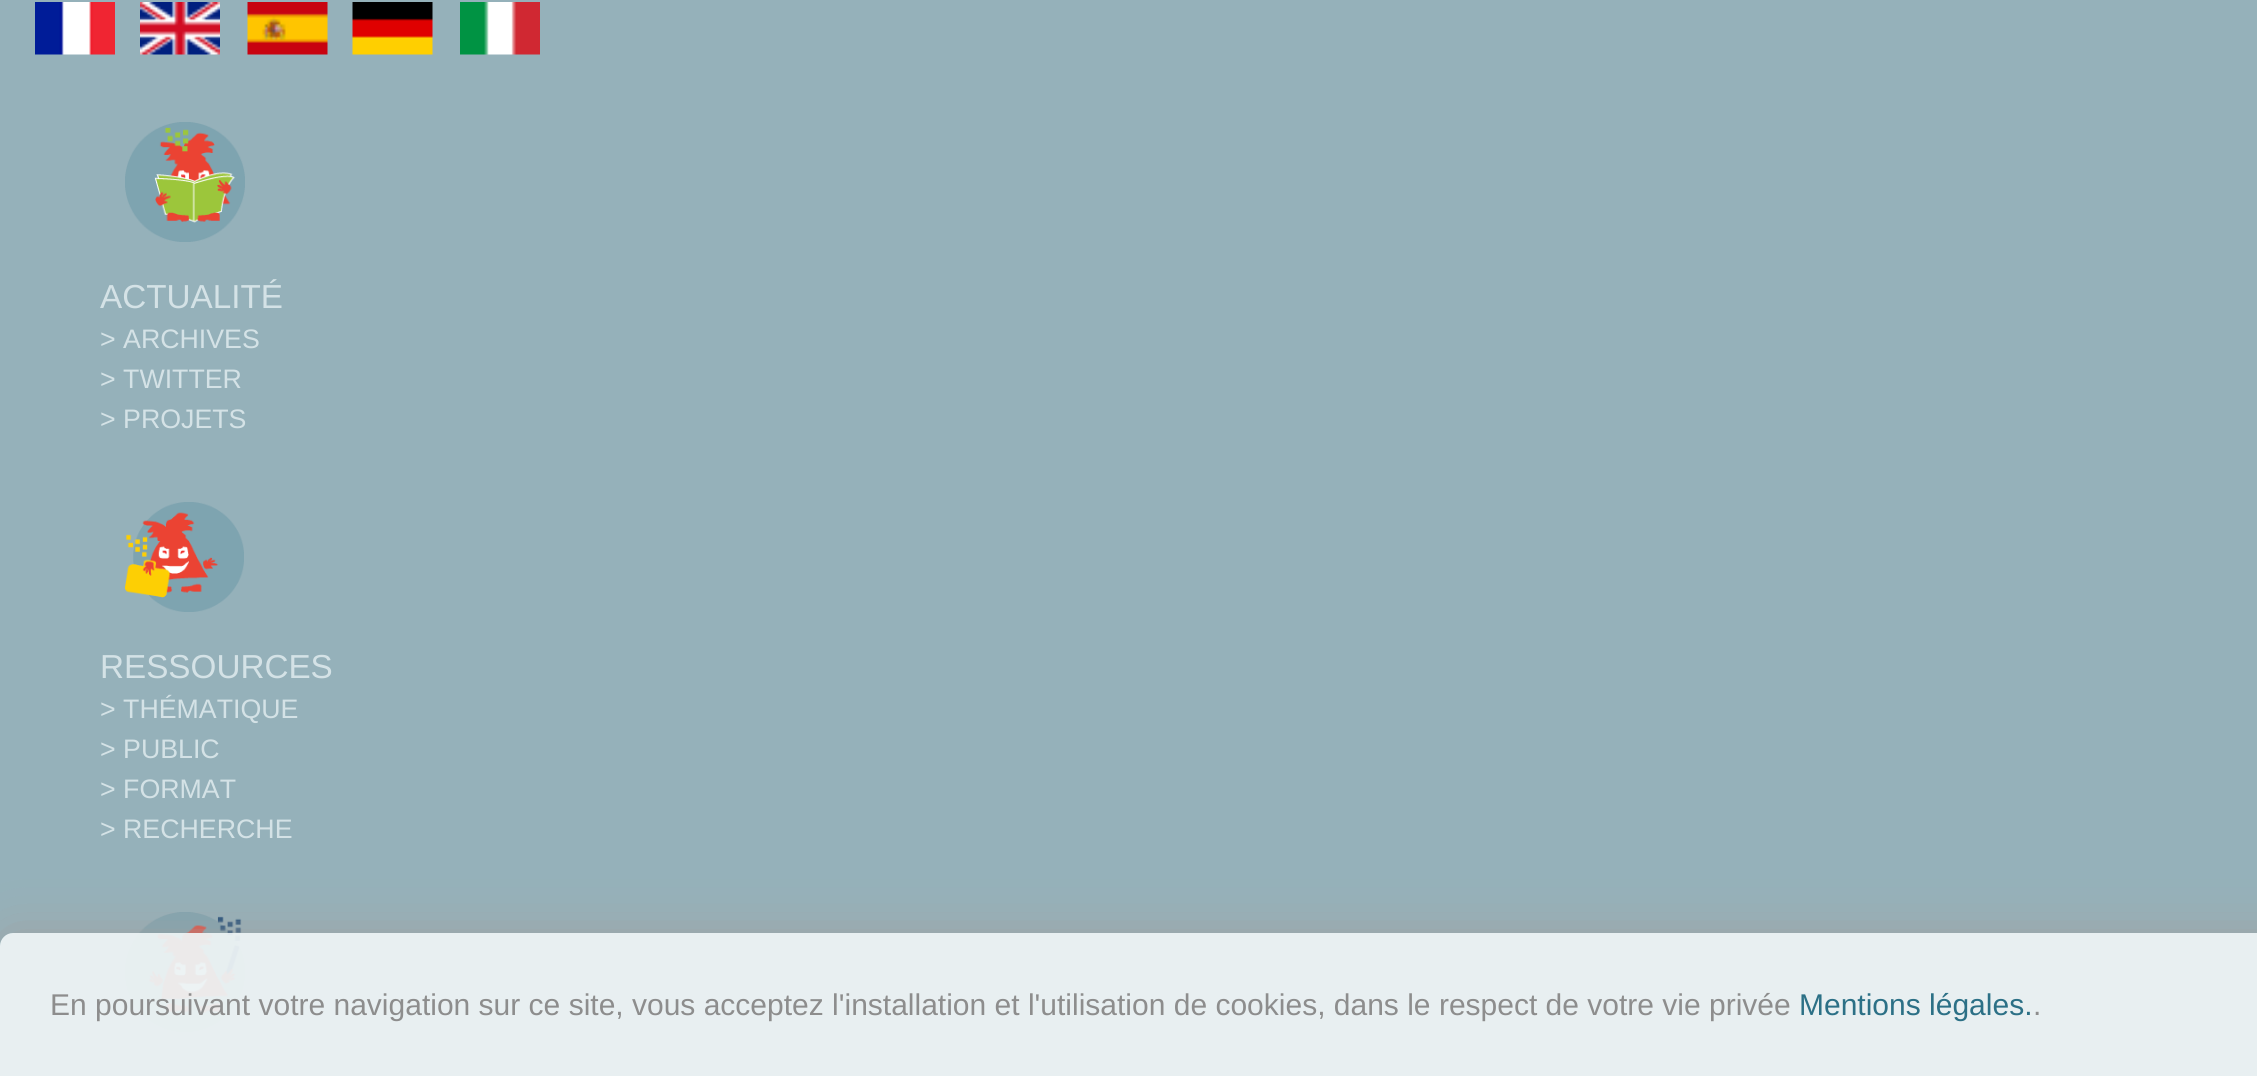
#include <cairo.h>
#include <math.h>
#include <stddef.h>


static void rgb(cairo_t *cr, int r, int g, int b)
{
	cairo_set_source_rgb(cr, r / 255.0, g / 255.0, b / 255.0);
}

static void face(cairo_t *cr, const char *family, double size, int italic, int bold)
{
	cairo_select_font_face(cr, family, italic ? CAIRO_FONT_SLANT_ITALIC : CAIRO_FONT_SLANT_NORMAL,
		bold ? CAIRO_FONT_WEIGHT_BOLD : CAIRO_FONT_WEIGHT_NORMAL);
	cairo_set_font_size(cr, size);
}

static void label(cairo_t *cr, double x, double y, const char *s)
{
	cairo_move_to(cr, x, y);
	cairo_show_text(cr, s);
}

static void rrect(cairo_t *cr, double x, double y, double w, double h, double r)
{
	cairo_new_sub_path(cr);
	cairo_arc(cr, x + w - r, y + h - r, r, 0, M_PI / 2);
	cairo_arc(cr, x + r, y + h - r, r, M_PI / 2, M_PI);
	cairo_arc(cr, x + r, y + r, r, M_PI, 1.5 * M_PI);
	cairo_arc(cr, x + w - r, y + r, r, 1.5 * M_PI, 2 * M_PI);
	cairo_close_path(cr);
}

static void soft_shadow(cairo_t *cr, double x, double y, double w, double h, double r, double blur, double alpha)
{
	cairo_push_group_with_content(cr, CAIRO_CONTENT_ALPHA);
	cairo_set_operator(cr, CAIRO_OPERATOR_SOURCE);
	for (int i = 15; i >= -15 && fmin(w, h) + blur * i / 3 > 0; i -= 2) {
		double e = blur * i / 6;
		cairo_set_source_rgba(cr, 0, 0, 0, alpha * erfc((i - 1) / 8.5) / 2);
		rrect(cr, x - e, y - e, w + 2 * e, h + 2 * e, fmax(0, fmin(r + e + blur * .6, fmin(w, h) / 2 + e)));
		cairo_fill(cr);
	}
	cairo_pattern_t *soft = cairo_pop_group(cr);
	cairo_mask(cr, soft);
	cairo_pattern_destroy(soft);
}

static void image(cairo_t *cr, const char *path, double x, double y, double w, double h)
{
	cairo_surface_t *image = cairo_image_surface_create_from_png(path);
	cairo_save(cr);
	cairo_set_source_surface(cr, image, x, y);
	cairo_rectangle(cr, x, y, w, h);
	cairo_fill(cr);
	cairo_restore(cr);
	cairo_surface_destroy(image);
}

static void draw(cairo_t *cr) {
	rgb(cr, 149, 177, 186);
	cairo_paint(cr);
	image(cr, "image0.png", 35, 2, 80, 53);
	image(cr, "image1.png", 140, 2, 80, 53);
	image(cr, "image2.png", 247, 2, 81, 53);
	image(cr, "image3.png", 352, 2, 81, 53);
	image(cr, "image4.png", 460, 2, 80, 53);
	image(cr, "image5.png", 125, 122, 120, 120);
	face(cr, "Liberation Sans", 33.25, 0, 0);
	rgb(cr, 212, 226, 230);
	label(cr, 100, 308, "ACTUALITÉ");
	face(cr, "Liberation Sans", 26.75, 0, 0);
	label(cr, 100, 348, "> ARCHIVES");
	label(cr, 100, 388, "> TWITTER");
	label(cr, 100, 428, "> PROJETS");
	image(cr, "image6.png", 125, 502, 119, 110);
	face(cr, "Liberation Sans", 33.25, 0, 0);
	label(cr, 100, 678, "RESSOURCES");
	face(cr, "Liberation Sans", 26.75, 0, 0);
	label(cr, 100, 718, "> THÉMATIQUE");
	label(cr, 100, 758, "> PUBLIC");
	label(cr, 100, 798, "> FORMAT");
	label(cr, 100, 838, "> RECHERCHE");
	image(cr, "image7.png", 125, 912, 120, 120);
	cairo_save(cr);
	cairo_set_fill_rule(cr, CAIRO_FILL_RULE_EVEN_ODD);
	cairo_new_path(cr);
	cairo_move_to(cr, 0, 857);
	cairo_line_to(cr, 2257, 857);
	cairo_line_to(cr, 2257, 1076);
	cairo_line_to(cr, 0, 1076);
	cairo_close_path(cr);
	cairo_move_to(cr, 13, 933);
	cairo_line_to(cr, 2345, 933);
	cairo_curve_to(cr, 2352, 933, 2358, 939, 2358, 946);
	cairo_line_to(cr, 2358, 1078);
	cairo_line_to(cr, 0, 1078);
	cairo_line_to(cr, 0, 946);
	cairo_curve_to(cr, 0, 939, 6, 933, 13, 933);
	cairo_close_path(cr);
	cairo_clip(cr);
	rgb(cr, 161, 161, 161);
	soft_shadow(cr, 0, 933, 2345, 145, 13, 25, 0.95);
	cairo_restore(cr);
	cairo_set_source_rgba(cr, 0.929, 0.953, 0.957, 0.95);
	cairo_new_path(cr);
	cairo_move_to(cr, 13, 933);
	cairo_line_to(cr, 2257, 933);
	cairo_curve_to(cr, 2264, 933, 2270, 939, 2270, 946);
	cairo_line_to(cr, 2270, 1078);
	cairo_line_to(cr, 0, 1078);
	cairo_line_to(cr, 0, 946);
	cairo_curve_to(cr, 0, 939, 6, 933, 13, 933);
	cairo_close_path(cr);
	cairo_fill(cr);
	face(cr, "Liberation Sans", 30, 0, 0);
	rgb(cr, 141, 141, 141);
	label(cr, 50, 1015, "En poursuivant votre navigation sur ce site, vous acceptez l'installation et l'utilisation de cookies, dans le respect de votre vie privée");
	rgb(cr, 44, 112, 134);
	label(cr, 1799, 1015, "Mentions légales.");
	rgb(cr, 141, 141, 141);
	label(cr, 2033, 1015, ".");
}

int main(void) {
	cairo_surface_t *surface = cairo_image_surface_create(CAIRO_FORMAT_RGB24, 2257, 1076);
	cairo_t *cr = cairo_create(surface);
	cairo_font_options_t *options = cairo_font_options_create();
	cairo_font_options_set_hint_metrics(options, CAIRO_HINT_METRICS_OFF);
	cairo_font_options_set_hint_style(options, CAIRO_HINT_STYLE_NONE);
	cairo_set_font_options(cr, options);
	cairo_set_miter_limit(cr, 4);
	draw(cr);
	cairo_surface_write_to_png(surface, "render.png");
	cairo_font_options_destroy(options);
	cairo_destroy(cr);
	cairo_surface_destroy(surface);
	return 0;
}
